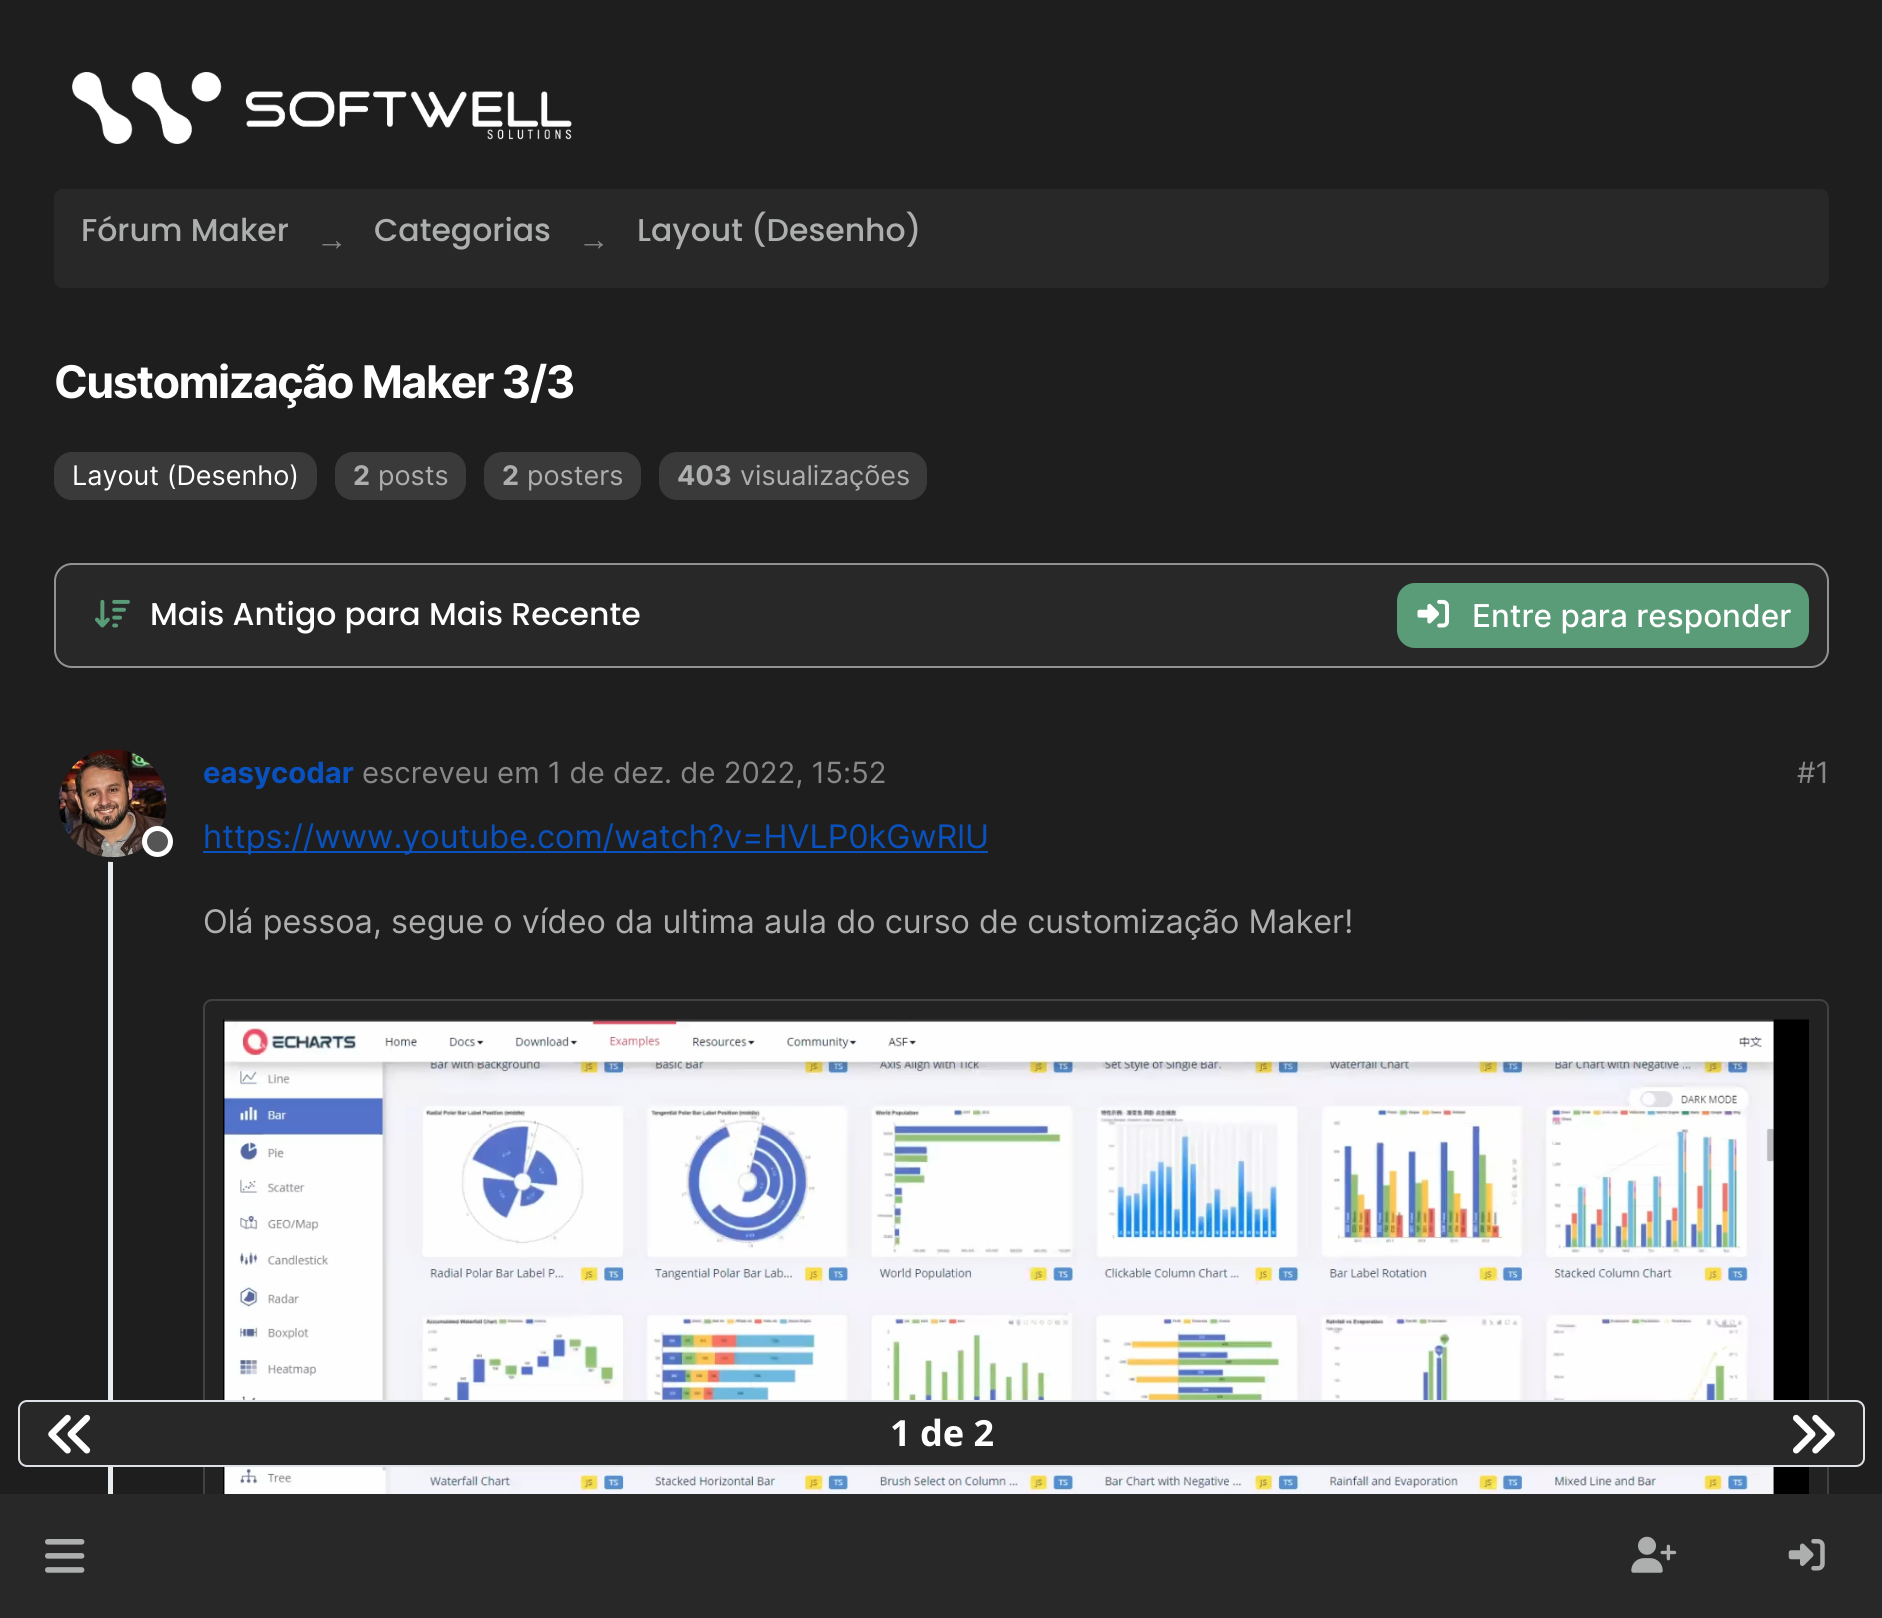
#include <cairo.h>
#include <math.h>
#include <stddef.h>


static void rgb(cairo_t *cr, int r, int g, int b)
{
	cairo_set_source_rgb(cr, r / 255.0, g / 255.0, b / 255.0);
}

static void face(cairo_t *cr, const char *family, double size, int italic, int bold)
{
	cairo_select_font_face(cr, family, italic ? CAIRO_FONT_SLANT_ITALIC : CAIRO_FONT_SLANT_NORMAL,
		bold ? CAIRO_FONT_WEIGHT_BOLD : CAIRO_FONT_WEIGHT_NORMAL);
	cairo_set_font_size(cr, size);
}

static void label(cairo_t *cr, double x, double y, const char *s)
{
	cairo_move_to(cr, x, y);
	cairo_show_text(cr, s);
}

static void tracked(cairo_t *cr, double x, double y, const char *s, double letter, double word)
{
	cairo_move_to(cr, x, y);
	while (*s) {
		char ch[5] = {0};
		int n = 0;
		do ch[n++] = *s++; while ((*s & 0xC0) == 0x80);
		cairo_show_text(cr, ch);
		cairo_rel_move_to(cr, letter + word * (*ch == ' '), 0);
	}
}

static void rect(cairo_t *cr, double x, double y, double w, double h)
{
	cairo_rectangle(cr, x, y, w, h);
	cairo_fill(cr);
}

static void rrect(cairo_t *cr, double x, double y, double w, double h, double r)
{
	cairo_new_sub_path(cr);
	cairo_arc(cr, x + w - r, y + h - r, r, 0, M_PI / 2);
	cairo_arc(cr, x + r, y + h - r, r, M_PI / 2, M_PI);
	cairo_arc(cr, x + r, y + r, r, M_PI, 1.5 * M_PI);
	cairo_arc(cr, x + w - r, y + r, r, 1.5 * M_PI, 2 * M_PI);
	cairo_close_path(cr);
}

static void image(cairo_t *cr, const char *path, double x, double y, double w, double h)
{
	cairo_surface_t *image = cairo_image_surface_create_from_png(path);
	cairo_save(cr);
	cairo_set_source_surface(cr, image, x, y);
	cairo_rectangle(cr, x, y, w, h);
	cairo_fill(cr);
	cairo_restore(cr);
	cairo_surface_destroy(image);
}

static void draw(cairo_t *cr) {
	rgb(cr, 30, 30, 30);
	cairo_paint(cr);
	image(cr, "image0.png", 72, 72, 500, 72);
	rgb(cr, 40, 40, 40);
	rrect(cr, 54, 189, 1775, 99, 9);
	cairo_fill(cr);
	face(cr, "Poppins Medium", 31.5, 0, 0);
	rgb(cr, 173, 175, 174);
	label(cr, 81, 241, "Fórum Maker");
	face(cr, "Liberation Sans", 31.5, 0, 0);
	rgb(cr, 136, 136, 136);
	label(cr, 316, 250, "→");
	face(cr, "Poppins Medium", 31.5, 0, 0);
	rgb(cr, 173, 175, 174);
	label(cr, 374, 241, "Categorias");
	face(cr, "Liberation Sans", 31.5, 0, 0);
	rgb(cr, 136, 136, 136);
	label(cr, 578, 250, "→");
	face(cr, "Poppins Medium", 31.5, 0, 0);
	rgb(cr, 173, 175, 174);
	label(cr, 637, 241, "Layout (Desenho)");
	face(cr, "Inter", 45, 0, 1);
	rgb(cr, 255, 255, 255);
	tracked(cr, 54, 398, "Customização Maker 3/3", -1.55, 0);
	rgb(cr, 58, 58, 58);
	rrect(cr, 54, 452, 263, 48, 18);
	cairo_fill(cr);
	face(cr, "Inter", 27, 0, 0);
	rgb(cr, 255, 255, 255);
	label(cr, 72, 485, "Layout (Desenho)");
	rgb(cr, 58, 58, 58);
	rrect(cr, 335, 452, 131, 48, 18);
	cairo_fill(cr);
	face(cr, "Inter", 27, 0, 1);
	rgb(cr, 173, 175, 174);
	label(cr, 353, 485, "2");
	face(cr, "Inter", 27, 0, 0);
	label(cr, 378, 485, "posts");
	rgb(cr, 58, 58, 58);
	rrect(cr, 484, 452, 157, 48, 18);
	cairo_fill(cr);
	face(cr, "Inter", 27, 0, 1);
	rgb(cr, 173, 175, 174);
	label(cr, 502, 485, "2");
	face(cr, "Inter", 27, 0, 0);
	label(cr, 527, 485, "posters");
	rgb(cr, 58, 58, 58);
	rrect(cr, 659, 452, 268, 48, 18);
	cairo_fill(cr);
	face(cr, "Inter", 27, 0, 1);
	rgb(cr, 173, 175, 174);
	label(cr, 677, 485, "403");
	face(cr, "Inter", 27, 0, 0);
	label(cr, 740, 485, "visualizações");
	rgb(cr, 40, 40, 40);
	rrect(cr, 55, 564, 1773, 103, 17);
	cairo_fill_preserve(cr);
	rgb(cr, 146, 146, 146);
	cairo_stroke(cr);
	image(cr, "image1.png", 95, 599, 35, 29);
	face(cr, "Poppins Medium", 31.5, 0, 0);
	rgb(cr, 255, 255, 255);
	label(cr, 150, 625, "Mais Antigo para Mais Recente");
	rgb(cr, 90, 156, 120);
	rrect(cr, 1397, 583, 412, 65, 18);
	cairo_fill(cr);
	image(cr, "image2.png", 1417, 599, 32, 29);
	face(cr, "Inter Medium", 31.5, 0, 0);
	rgb(cr, 255, 255, 255);
	label(cr, 1472, 627, "Entre para responder");
	rgb(cr, 233, 236, 239);
	rect(cr, 108, 861, 5, 633);
	cairo_new_path(cr);
	cairo_arc(cr, 112.5, 803.5, 56, 0, 2 * M_PI);
	rgb(cr, 30, 30, 30);
	cairo_set_line_width(cr, 5);
	cairo_stroke(cr);
	image(cr, "image3.png", 58, 749, 109, 109);
	rgb(cr, 85, 85, 85);
	cairo_arc(cr, 157.5, 841.5, 13, 0, 2 * M_PI);
	cairo_fill_preserve(cr);
	rgb(cr, 255, 255, 255);
	cairo_stroke(cr);
	face(cr, "Inter", 29.25, 0, 1);
	rgb(cr, 9, 81, 190);
	label(cr, 203, 783, "easycodar");
	face(cr, "Inter", 29.25, 0, 0);
	rgb(cr, 136, 136, 136);
	label(cr, 362, 783, "escreveu em 1 de dez. de 2022, 15:52");
	label(cr, 1797, 783, "#1");
	rgb(cr, 9, 81, 190);
	rect(cr, 203, 851, 785, 2);
	face(cr, "Inter", 32.4, 0, 0);
	label(cr, 203, 848, "https://www.youtube.com/watch?v=HVLP0kGwRlU");
	rgb(cr, 173, 175, 174);
	label(cr, 203, 933, "Olá pessoa, segue o vídeo da ultima aula do curso de customização Maker!");
	rgb(cr, 34, 34, 34);
	rrect(cr, 204, 1000, 1624, 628, 8);
	cairo_fill_preserve(cr);
	rgb(cr, 65, 65, 65);
	cairo_set_line_width(cr, 2);
	cairo_stroke(cr);
	image(cr, "image4.png", 223, 1019, 1586, 475);
	rgb(cr, 40, 40, 40);
	rrect(cr, 19, 1401, 1845, 65, 8);
	cairo_fill_preserve(cr);
	rgb(cr, 222, 226, 230);
	cairo_stroke(cr);
	image(cr, "image5.png", 48, 1414, 43, 40);
	face(cr, "Noto Sans", 36, 0, 1);
	rgb(cr, 255, 255, 255);
	label(cr, 890, 1446, "1 de 2");
	image(cr, "image6.png", 1793, 1414, 42, 40);
	rgb(cr, 40, 40, 40);
	rect(cr, 0, 1494, 1882, 124);
	image(cr, "image7.png", 45, 1539, 40, 34);
	image(cr, "image8.png", 1631, 1536, 46, 37);
	image(cr, "image9.png", 1788, 1539, 37, 32);
}

int main(void) {
	cairo_surface_t *surface = cairo_image_surface_create(CAIRO_FORMAT_RGB24, 1882, 1618);
	cairo_t *cr = cairo_create(surface);
	cairo_font_options_t *options = cairo_font_options_create();
	cairo_font_options_set_hint_metrics(options, CAIRO_HINT_METRICS_OFF);
	cairo_font_options_set_hint_style(options, CAIRO_HINT_STYLE_NONE);
	cairo_set_font_options(cr, options);
	cairo_set_miter_limit(cr, 4);
	draw(cr);
	cairo_surface_write_to_png(surface, "render.png");
	cairo_font_options_destroy(options);
	cairo_destroy(cr);
	cairo_surface_destroy(surface);
	return 0;
}
